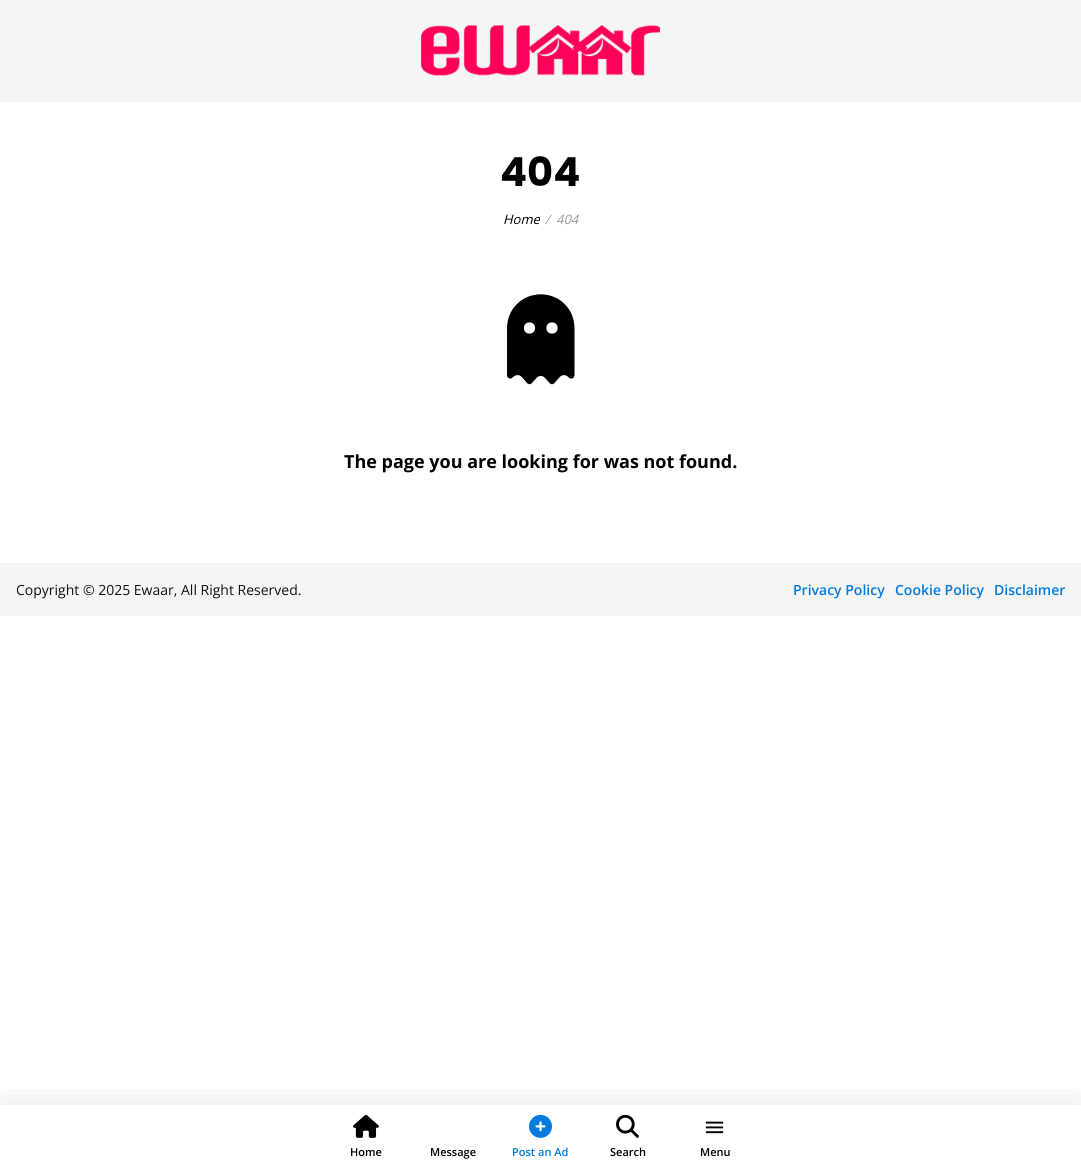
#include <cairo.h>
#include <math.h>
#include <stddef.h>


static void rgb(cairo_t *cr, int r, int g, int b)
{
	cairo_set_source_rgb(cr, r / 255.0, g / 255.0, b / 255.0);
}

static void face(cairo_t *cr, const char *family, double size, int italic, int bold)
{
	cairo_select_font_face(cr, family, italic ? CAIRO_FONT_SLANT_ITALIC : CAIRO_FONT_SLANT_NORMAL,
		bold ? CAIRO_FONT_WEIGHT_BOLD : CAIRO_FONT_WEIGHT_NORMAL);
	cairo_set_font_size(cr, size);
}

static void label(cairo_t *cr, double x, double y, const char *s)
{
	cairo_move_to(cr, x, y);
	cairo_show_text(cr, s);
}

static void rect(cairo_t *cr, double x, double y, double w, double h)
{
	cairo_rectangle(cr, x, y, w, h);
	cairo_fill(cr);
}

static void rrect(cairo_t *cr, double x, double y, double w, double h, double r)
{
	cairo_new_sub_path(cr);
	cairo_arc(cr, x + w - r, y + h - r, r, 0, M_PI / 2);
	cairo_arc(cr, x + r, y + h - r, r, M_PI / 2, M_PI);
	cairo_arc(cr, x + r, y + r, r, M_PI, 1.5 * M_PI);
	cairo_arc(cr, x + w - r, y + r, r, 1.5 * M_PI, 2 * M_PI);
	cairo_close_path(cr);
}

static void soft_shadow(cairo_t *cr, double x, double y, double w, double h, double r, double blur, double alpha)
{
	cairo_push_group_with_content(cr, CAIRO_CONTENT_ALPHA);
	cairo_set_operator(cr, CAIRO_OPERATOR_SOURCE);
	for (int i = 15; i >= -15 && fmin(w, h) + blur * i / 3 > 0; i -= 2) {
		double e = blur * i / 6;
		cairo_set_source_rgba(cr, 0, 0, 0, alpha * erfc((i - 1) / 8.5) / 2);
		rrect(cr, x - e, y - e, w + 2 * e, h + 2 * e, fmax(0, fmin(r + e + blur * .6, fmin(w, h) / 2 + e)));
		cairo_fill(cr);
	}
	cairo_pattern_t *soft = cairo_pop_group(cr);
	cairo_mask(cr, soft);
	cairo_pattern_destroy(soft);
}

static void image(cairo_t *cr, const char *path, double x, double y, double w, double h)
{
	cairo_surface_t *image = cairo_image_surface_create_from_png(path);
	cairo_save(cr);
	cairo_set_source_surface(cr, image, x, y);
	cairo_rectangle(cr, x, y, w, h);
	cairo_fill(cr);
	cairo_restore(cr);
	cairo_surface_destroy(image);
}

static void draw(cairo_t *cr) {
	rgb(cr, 255, 255, 255);
	cairo_paint(cr);
	rgb(cr, 245, 245, 245);
	rect(cr, 0, 0, 1081, 102);
	image(cr, "image0.png", 421, 25, 240, 51);
	face(cr, "Poppins", 40, 0, 1);
	rgb(cr, 0, 0, 0);
	label(cr, 500, 186, "404");
	face(cr, "Open Sans", 13, 1, 0);
	label(cr, 503, 224, "Home");
	rgb(cr, 153, 153, 153);
	label(cr, 545, 224, "/");
	label(cr, 556, 224, "404");
	image(cr, "image1.png", 507, 294, 68, 91);
	face(cr, "Open Sans", 18, 0, 1);
	rgb(cr, 0, 0, 0);
	label(cr, 344, 468, "The page you are looking for was not found.");
	rgb(cr, 245, 245, 245);
	rect(cr, 0, 563, 1081, 53);
	face(cr, "Open Sans", 14, 0, 0);
	rgb(cr, 17, 17, 17);
	label(cr, 16, 595, "Copyright © 2025 Ewaar, All Right Reserved.");
	face(cr, "Open Sans SemiBold", 14, 0, 0);
	rgb(cr, 2, 122, 222);
	label(cr, 793, 595, "Privacy Policy");
	label(cr, 895, 595, "Cookie Policy");
	label(cr, 994, 595, "Disclaimer");
	cairo_save(cr);
	cairo_rectangle(cr, 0, 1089, 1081, 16);
	cairo_clip(cr);
	rgb(cr, 0, 0, 0);
	soft_shadow(cr, 0, 1104, 1081, 65, 0, 20, 0.09);
	cairo_restore(cr);
	image(cr, "image2.png", 353, 1114, 26, 24);
	face(cr, "Open Sans SemiBold", 11, 0, 0);
	rgb(cr, 0, 0, 0);
	label(cr, 350, 1156, "Home");
	label(cr, 430, 1156, "Message");
	image(cr, "image3.png", 529, 1114, 23, 24);
	rgb(cr, 2, 122, 222);
	label(cr, 512, 1156, "Post an Ad");
	image(cr, "image4.png", 616, 1114, 23, 24);
	rgb(cr, 0, 0, 0);
	label(cr, 610, 1156, "Search");
	image(cr, "image5.png", 705, 1121, 19, 13);
	label(cr, 700, 1156, "Menu");
}

int main(void) {
	cairo_surface_t *surface = cairo_image_surface_create(CAIRO_FORMAT_RGB24, 1081, 1170);
	cairo_t *cr = cairo_create(surface);
	cairo_font_options_t *options = cairo_font_options_create();
	cairo_font_options_set_hint_metrics(options, CAIRO_HINT_METRICS_OFF);
	cairo_font_options_set_hint_style(options, CAIRO_HINT_STYLE_NONE);
	cairo_set_font_options(cr, options);
	cairo_set_miter_limit(cr, 4);
	draw(cr);
	cairo_surface_write_to_png(surface, "render.png");
	cairo_font_options_destroy(options);
	cairo_destroy(cr);
	cairo_surface_destroy(surface);
	return 0;
}
